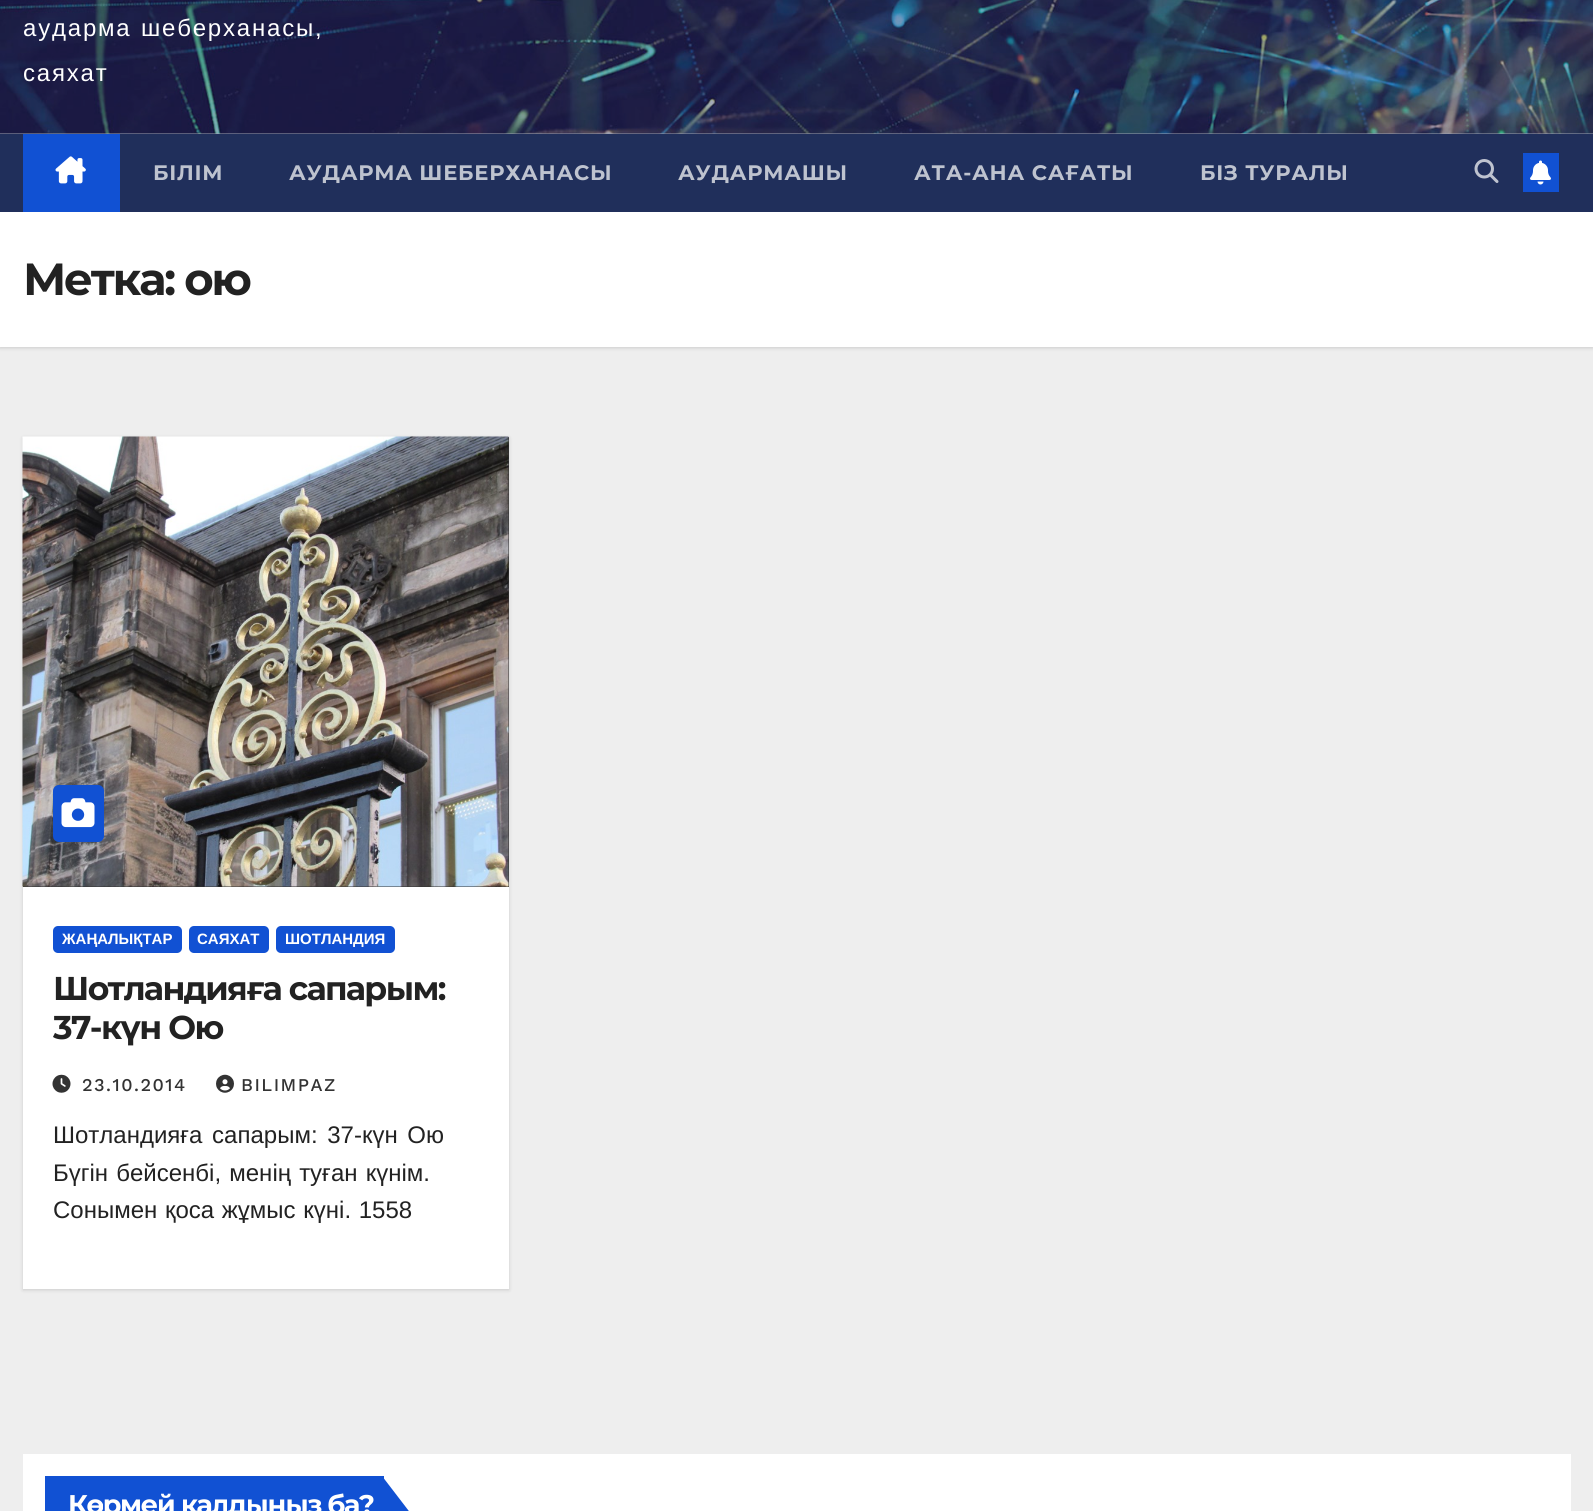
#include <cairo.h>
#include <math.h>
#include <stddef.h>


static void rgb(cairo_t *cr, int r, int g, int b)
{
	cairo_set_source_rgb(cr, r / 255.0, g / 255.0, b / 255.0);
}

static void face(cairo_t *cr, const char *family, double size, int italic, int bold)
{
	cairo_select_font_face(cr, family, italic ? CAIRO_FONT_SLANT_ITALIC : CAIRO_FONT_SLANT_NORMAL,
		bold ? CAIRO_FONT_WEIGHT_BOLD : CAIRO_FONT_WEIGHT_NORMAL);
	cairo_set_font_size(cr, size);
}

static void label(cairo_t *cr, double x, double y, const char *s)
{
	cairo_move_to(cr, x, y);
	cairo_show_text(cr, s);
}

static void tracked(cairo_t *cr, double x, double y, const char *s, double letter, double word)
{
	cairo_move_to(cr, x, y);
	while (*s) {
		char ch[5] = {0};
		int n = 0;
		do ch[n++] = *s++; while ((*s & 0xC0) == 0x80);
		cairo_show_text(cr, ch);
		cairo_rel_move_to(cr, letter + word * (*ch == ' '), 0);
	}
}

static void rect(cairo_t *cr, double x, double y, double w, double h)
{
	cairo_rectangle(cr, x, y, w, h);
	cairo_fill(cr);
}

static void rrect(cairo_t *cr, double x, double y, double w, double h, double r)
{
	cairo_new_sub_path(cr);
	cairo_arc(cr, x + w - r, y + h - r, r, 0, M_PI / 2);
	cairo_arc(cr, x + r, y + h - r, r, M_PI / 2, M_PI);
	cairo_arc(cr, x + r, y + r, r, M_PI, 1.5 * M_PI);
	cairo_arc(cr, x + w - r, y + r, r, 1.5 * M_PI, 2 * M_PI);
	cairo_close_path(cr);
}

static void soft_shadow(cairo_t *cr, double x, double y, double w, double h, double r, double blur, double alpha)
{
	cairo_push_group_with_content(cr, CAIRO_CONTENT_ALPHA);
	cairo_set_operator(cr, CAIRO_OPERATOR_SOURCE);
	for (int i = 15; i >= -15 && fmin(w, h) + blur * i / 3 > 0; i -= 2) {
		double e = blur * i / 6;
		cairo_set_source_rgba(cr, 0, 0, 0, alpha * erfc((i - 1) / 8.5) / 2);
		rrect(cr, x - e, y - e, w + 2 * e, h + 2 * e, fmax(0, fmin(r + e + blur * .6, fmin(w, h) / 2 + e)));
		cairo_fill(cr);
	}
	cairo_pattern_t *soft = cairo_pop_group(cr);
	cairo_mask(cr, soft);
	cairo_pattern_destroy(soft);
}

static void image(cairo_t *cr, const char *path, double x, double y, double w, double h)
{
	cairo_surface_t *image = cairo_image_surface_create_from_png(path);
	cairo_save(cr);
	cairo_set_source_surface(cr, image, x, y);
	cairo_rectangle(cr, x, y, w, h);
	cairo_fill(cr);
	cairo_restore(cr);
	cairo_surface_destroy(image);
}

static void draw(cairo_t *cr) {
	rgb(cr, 238, 238, 238);
	cairo_paint(cr);
	rgb(cr, 156, 162, 179);
	rect(cr, 0, 133, 1593, 1);
	image(cr, "image0.png", 0, 0, 1593, 134);
	face(cr, "Liberation Sans", 24, 0, 0);
	rgb(cr, 255, 255, 255);
	tracked(cr, 23, 36, "аударма шеберханасы,", 1.8, 1);
	tracked(cr, 23, 81, "саяхат", 1.8, 0);
	rgb(cr, 0, 0, 0);
	soft_shadow(cr, 0, 213, 1593, 135, 0, 2, 0.15);
	rgb(cr, 32, 47, 91);
	rect(cr, 0, 134, 1593, 78);
	rgb(cr, 17, 81, 211);
	rect(cr, 23, 134, 97, 78);
	image(cr, "image1.png", 55, 156, 31, 28);
	face(cr, "Montserrat", 21, 0, 1);
	rgb(cr, 190, 195, 207);
	tracked(cr, 153, 180, "БІЛІМ", 0.75, 0);
	tracked(cr, 289, 180, "АУДАРМА ШЕБЕРХАНАСЫ", 0.75, 0);
	tracked(cr, 678, 180, "АУДАРМАШЫ", 0.75, 0);
	tracked(cr, 914, 180, "АТА-АНА САҒАТЫ", 0.75, 0);
	tracked(cr, 1200, 180, "БІЗ ТУРАЛЫ", 0.75, 0);
	image(cr, "image2.png", 1474, 159, 25, 24);
	rgb(cr, 17, 81, 211);
	rect(cr, 1523, 153, 36, 39);
	image(cr, "image3.png", 1530, 160, 21, 25);
	rgb(cr, 255, 255, 255);
	rect(cr, 0, 212, 1593, 135);
	face(cr, "Montserrat", 45, 0, 1);
	rgb(cr, 34, 34, 34);
	tracked(cr, 23, 295, "Метка: ою", -2.25, 0);
	rgb(cr, 0, 0, 0);
	soft_shadow(cr, 23, 438, 486, 852, 0, 2, 0.15);
	rgb(cr, 255, 255, 255);
	rect(cr, 23, 887, 486, 402);
	rgb(cr, 51, 51, 51);
	rect(cr, 23, 437, 486, 450);
	image(cr, "image4.png", 22, 436, 487, 451);
	rgb(cr, 17, 81, 211);
	rrect(cr, 53, 785, 51, 57, 6);
	cairo_fill(cr);
	image(cr, "image5.png", 61, 798, 34, 30);
	rrect(cr, 53, 926, 129, 27, 5);
	cairo_fill(cr);
	face(cr, "Liberation Sans", 15, 0, 1);
	rgb(cr, 255, 255, 255);
	label(cr, 62, 944, "ЖАҢАЛЫҚТАР");
	rgb(cr, 17, 81, 211);
	rrect(cr, 189, 926, 80, 27, 5);
	cairo_fill(cr);
	rgb(cr, 255, 255, 255);
	label(cr, 197, 944, "САЯХАТ");
	rgb(cr, 17, 81, 211);
	rrect(cr, 276, 926, 119, 27, 5);
	cairo_fill(cr);
	rgb(cr, 255, 255, 255);
	label(cr, 285, 944, "ШОТЛАНДИЯ");
	face(cr, "Montserrat", 33, 0, 1);
	rgb(cr, 34, 34, 34);
	tracked(cr, 53, 1000, "Шотландияға сапарым:", -1.6, 0);
	tracked(cr, 53, 1039, "37-күн Ою", -1.6, 0);
	image(cr, "image6.png", 52, 1074, 19, 19);
	face(cr, "Work Sans Medium", 18, 0, 0);
	rgb(cr, 51, 51, 51);
	tracked(cr, 82, 1091, "23.10.2014", 1.5, 0);
	image(cr, "image7.png", 216, 1074, 18, 19);
	tracked(cr, 241, 1091, "BILIMPAZ", 1.5, 0);
	face(cr, "Liberation Sans", 24, 0, 0);
	rgb(cr, 34, 34, 34);
	tracked(cr, 53, 1143, "Шотландияға сапарым: 37-күн Ою", 0, 3);
	tracked(cr, 53, 1181, "Бүгін бейсенбі, менің туған күнім.", 0, 1.5);
	tracked(cr, 53, 1218, "Сонымен қоса жұмыс күні. 1558", 0, 1);
	rgb(cr, 255, 255, 255);
	rect(cr, 23, 1454, 1548, 57);
	rgb(cr, 17, 81, 211);
	rect(cr, 45, 1476, 339, 35);
	face(cr, "Montserrat", 27, 0, 1);
	rgb(cr, 255, 255, 255);
	tracked(cr, 68, 1514, "Көрмей қалдыңыз ба?", -1.4, 0);
	rgb(cr, 17, 81, 211);
	cairo_new_path(cr);
	cairo_move_to(cr, 382, 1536);
	cairo_line_to(cr, 382, 1476);
	cairo_line_to(cr, 428, 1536);
	cairo_close_path(cr);
	cairo_fill(cr);
}

int main(void) {
	cairo_surface_t *surface = cairo_image_surface_create(CAIRO_FORMAT_RGB24, 1593, 1511);
	cairo_t *cr = cairo_create(surface);
	cairo_font_options_t *options = cairo_font_options_create();
	cairo_font_options_set_hint_metrics(options, CAIRO_HINT_METRICS_OFF);
	cairo_font_options_set_hint_style(options, CAIRO_HINT_STYLE_NONE);
	cairo_set_font_options(cr, options);
	cairo_set_miter_limit(cr, 4);
	draw(cr);
	cairo_surface_write_to_png(surface, "render.png");
	cairo_font_options_destroy(options);
	cairo_destroy(cr);
	cairo_surface_destroy(surface);
	return 0;
}
